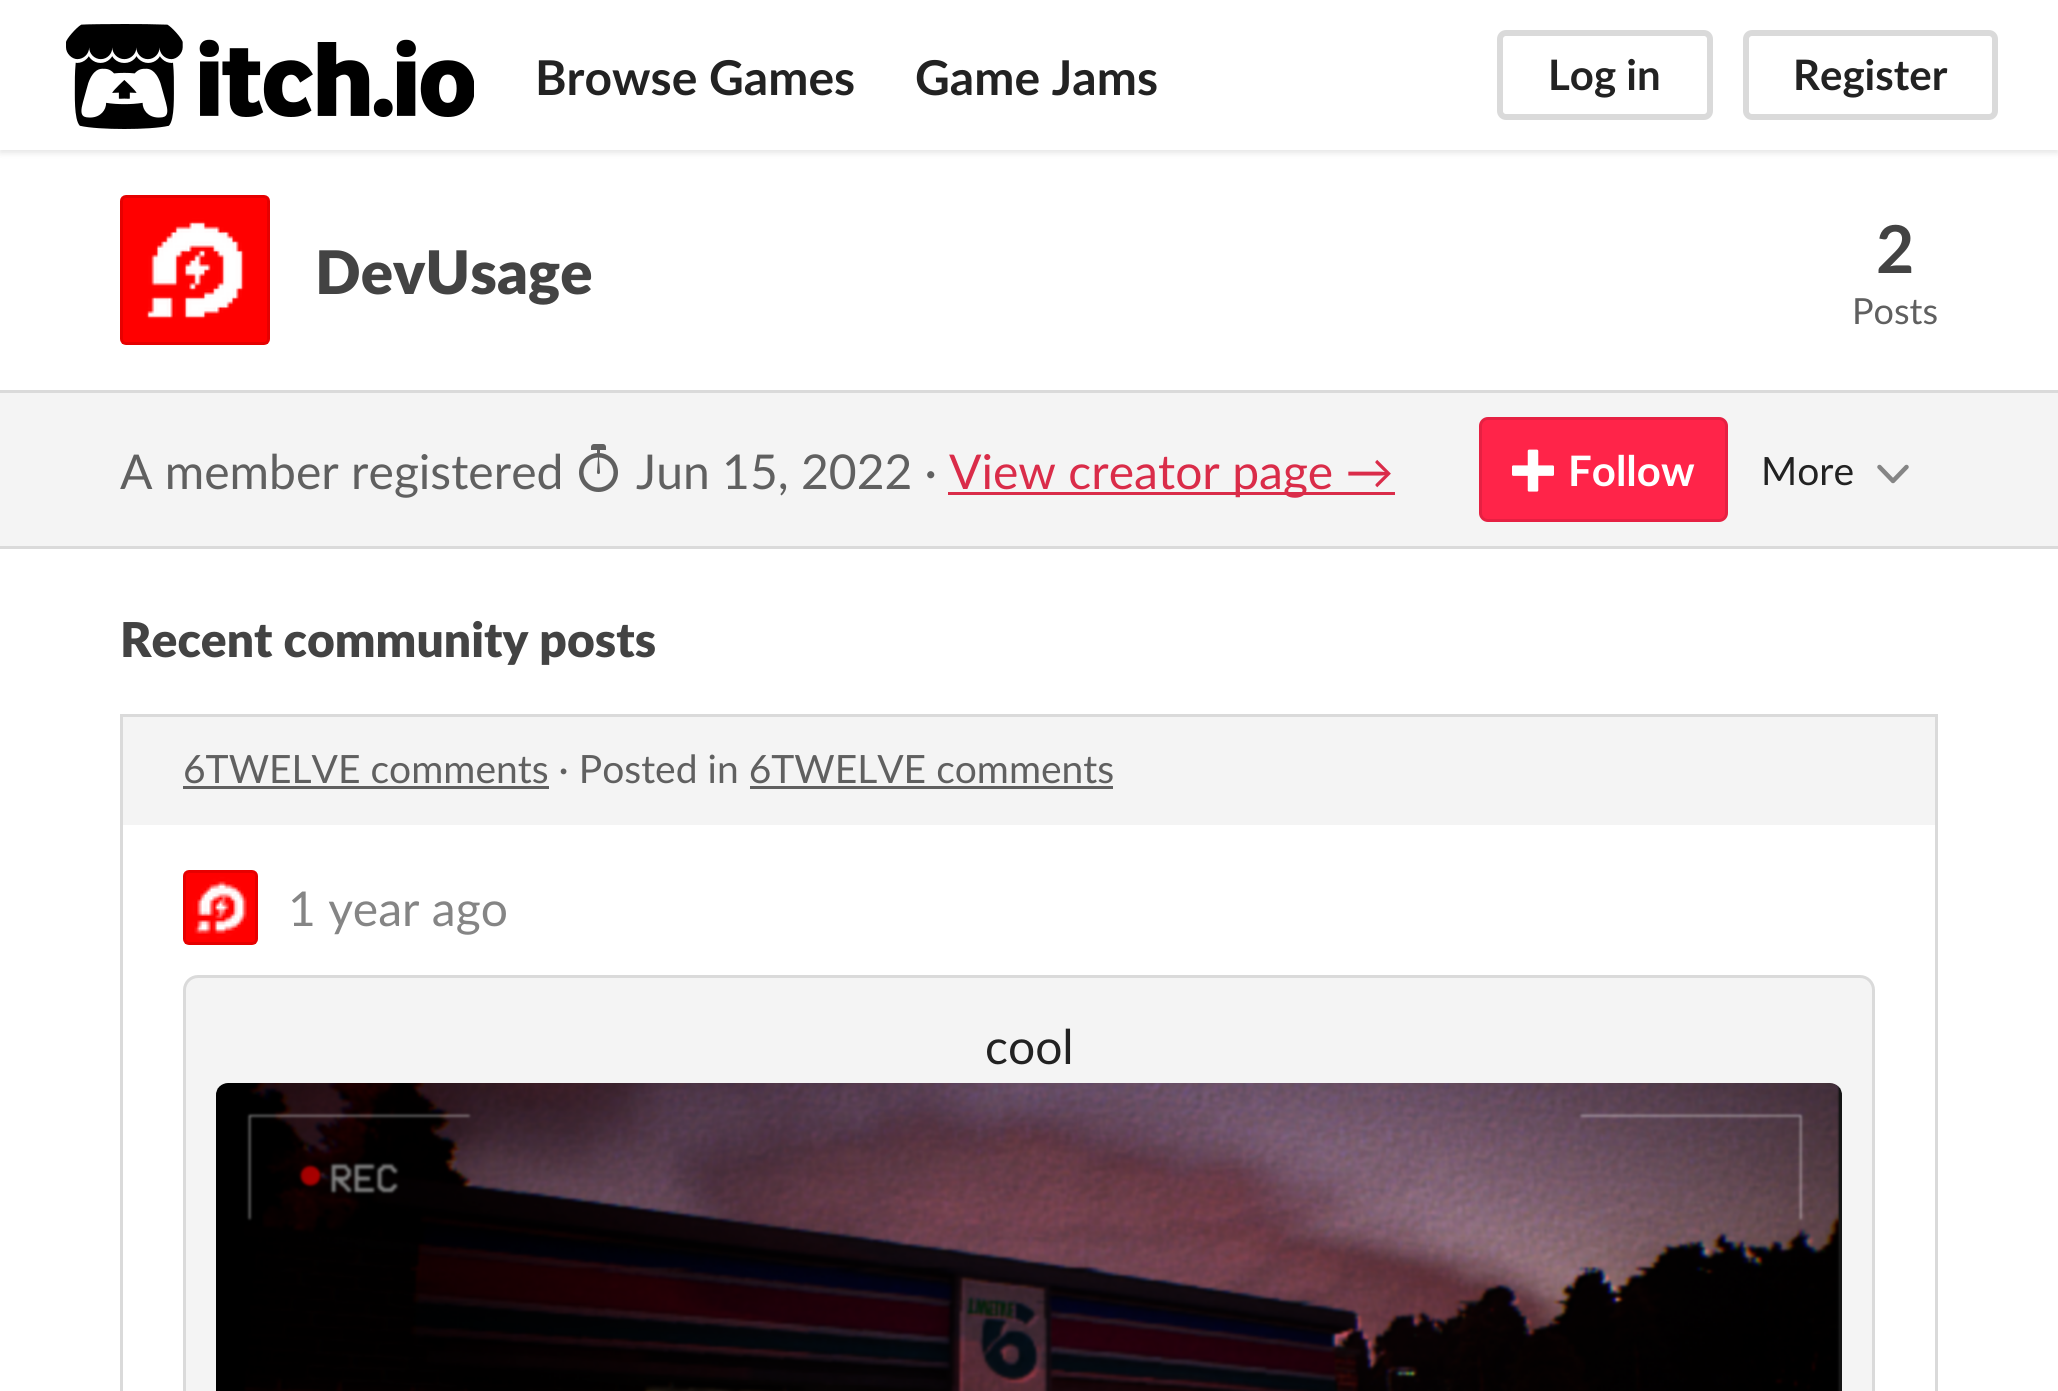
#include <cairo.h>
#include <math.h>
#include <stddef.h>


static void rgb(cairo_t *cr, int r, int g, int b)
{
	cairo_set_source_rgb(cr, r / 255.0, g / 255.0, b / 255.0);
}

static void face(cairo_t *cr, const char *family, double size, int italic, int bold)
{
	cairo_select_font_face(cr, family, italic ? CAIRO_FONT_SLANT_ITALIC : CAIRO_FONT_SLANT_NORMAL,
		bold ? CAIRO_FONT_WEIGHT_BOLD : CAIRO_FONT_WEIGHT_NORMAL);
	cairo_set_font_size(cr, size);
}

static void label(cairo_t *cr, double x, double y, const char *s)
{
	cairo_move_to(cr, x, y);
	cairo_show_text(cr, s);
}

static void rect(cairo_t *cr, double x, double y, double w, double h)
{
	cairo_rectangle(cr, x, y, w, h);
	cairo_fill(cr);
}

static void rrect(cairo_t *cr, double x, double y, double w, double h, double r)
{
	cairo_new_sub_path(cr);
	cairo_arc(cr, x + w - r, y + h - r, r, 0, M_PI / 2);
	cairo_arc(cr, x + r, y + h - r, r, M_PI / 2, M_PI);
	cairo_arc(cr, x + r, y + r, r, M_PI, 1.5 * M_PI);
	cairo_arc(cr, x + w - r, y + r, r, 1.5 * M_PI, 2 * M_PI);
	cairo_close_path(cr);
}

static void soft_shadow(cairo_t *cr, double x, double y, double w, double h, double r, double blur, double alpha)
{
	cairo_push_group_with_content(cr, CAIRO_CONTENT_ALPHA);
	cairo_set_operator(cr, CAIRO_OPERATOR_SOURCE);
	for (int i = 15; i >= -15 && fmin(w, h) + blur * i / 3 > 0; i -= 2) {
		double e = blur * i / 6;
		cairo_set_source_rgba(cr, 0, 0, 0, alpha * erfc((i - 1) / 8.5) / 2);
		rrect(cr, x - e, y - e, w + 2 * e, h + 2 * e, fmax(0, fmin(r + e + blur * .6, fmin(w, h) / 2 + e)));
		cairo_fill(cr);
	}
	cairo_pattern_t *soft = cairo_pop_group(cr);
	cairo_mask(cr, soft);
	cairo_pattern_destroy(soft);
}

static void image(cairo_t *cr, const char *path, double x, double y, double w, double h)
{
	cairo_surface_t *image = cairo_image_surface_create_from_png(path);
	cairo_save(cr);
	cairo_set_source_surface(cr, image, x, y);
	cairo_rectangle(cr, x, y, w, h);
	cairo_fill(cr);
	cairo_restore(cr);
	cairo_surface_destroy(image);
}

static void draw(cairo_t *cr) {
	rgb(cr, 255, 255, 255);
	cairo_paint(cr);
	rgb(cr, 0, 0, 0);
	soft_shadow(cr, 0, 3, 2058, 150, 0, 3, 0.1);
	rgb(cr, 255, 255, 255);
	rect(cr, 0, 0, 2058, 150);
	image(cr, "image0.png", 66, 24, 408, 105);
	face(cr, "Lato", 48, 0, 1);
	rgb(cr, 34, 34, 34);
	label(cr, 535, 95, "Browse Games");
	label(cr, 915, 95, "Game Jams");
	rrect(cr, 1500, 33, 210, 84, 6);
	rgb(cr, 218, 218, 218);
	cairo_set_line_width(cr, 6);
	cairo_stroke(cr);
	face(cr, "Lato", 42, 0, 1);
	rgb(cr, 34, 34, 34);
	label(cr, 1548, 90, "Log in");
	rrect(cr, 1746, 33, 249, 84, 6);
	rgb(cr, 218, 218, 218);
	cairo_stroke(cr);
	rgb(cr, 34, 34, 34);
	label(cr, 1793, 90, "Register");
	rgb(cr, 218, 218, 218);
	rect(cr, 0, 390, 2058, 3);
	image(cr, "image1.png", 120, 195, 150, 150);
	rrect(cr, 121.5, 196.5, 147, 147, 4.5);
	cairo_set_source_rgba(cr, 0, 0, 0, 0.1);
	cairo_set_line_width(cr, 3);
	cairo_stroke(cr);
	face(cr, "Lato Black", 60, 0, 0);
	rgb(cr, 67, 67, 67);
	label(cr, 315, 294, "DevUsage");
	face(cr, "Lato", 66, 0, 1);
	label(cr, 1876, 273, "2");
	face(cr, "Lato", 36, 0, 0);
	rgb(cr, 96, 96, 96);
	label(cr, 1852, 324, "Posts");
	rgb(cr, 244, 244, 244);
	rect(cr, 0, 393, 2058, 153);
	rgb(cr, 218, 218, 218);
	rect(cr, 0, 546, 2058, 3);
	face(cr, "Lato", 48, 0, 0);
	rgb(cr, 96, 96, 96);
	label(cr, 120, 489, "A member registered");
	image(cr, "image2.png", 579, 444, 39, 48);
	label(cr, 636, 489, "Jun 15, 2022 ·");
	rgb(cr, 218, 44, 73);
	rect(cr, 948, 492, 447, 3);
	label(cr, 949, 489, "View creator page →");
	rgb(cr, 255, 36, 73);
	rrect(cr, 1479, 417, 249, 105, 9);
	cairo_fill(cr);
	rrect(cr, 1480.5, 418.5, 246, 102, 7.5);
	cairo_set_source_rgba(cr, 0, 0, 0, 0.1);
	cairo_stroke(cr);
	image(cr, "image3.png", 1512, 449, 42, 43);
	face(cr, "Lato", 42, 0, 1);
	rgb(cr, 255, 255, 255);
	label(cr, 1568, 486, "Follow");
	face(cr, "Lato", 39, 0, 0);
	rgb(cr, 34, 34, 34);
	label(cr, 1761, 485, "More");
	cairo_new_path(cr);
	cairo_move_to(cr, 1879.5, 467);
	cairo_line_to(cr, 1893, 481);
	cairo_line_to(cr, 1906.5, 467);
	rgb(cr, 133, 133, 133);
	cairo_set_line_width(cr, 4.5);
	cairo_set_line_cap(cr, CAIRO_LINE_CAP_ROUND);
	cairo_set_line_join(cr, CAIRO_LINE_JOIN_ROUND);
	cairo_stroke(cr);
	face(cr, "Lato Black", 48, 0, 0);
	rgb(cr, 67, 67, 67);
	label(cr, 120, 657, "Recent community posts");
	cairo_rectangle(cr, 121.5, 715.5, 1815, 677);
	rgb(cr, 218, 218, 218);
	cairo_set_line_width(cr, 3);
	cairo_set_line_cap(cr, CAIRO_LINE_CAP_BUTT);
	cairo_set_line_join(cr, CAIRO_LINE_JOIN_MITER);
	cairo_stroke(cr);
	rgb(cr, 244, 244, 244);
	rect(cr, 123, 717, 1812, 108);
	face(cr, "Lato", 39, 0, 0);
	rgb(cr, 96, 96, 96);
	label(cr, 183, 783, "6TWELVE comments · Posted in 6TWELVE comments");
	rect(cr, 183, 786, 366, 3);
	rect(cr, 750, 786, 363, 3);
	image(cr, "image4.png", 183, 870, 75, 75);
	rrect(cr, 184.5, 871.5, 72, 72, 4.5);
	cairo_set_source_rgba(cr, 0, 0, 0, 0.1);
	cairo_stroke(cr);
	face(cr, "Lato", 48, 0, 0);
	rgb(cr, 133, 133, 133);
	label(cr, 288, 926, "1 year ago");
	rgb(cr, 244, 244, 244);
	rrect(cr, 184.5, 976.5, 1689, 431, 13.5);
	cairo_fill_preserve(cr);
	rgb(cr, 218, 218, 218);
	cairo_stroke(cr);
	rgb(cr, 34, 34, 34);
	label(cr, 985, 1064, "cool");
	image(cr, "image5.png", 216, 1083, 1626, 308);
}

int main(void) {
	cairo_surface_t *surface = cairo_image_surface_create(CAIRO_FORMAT_RGB24, 2058, 1391);
	cairo_t *cr = cairo_create(surface);
	cairo_font_options_t *options = cairo_font_options_create();
	cairo_font_options_set_hint_metrics(options, CAIRO_HINT_METRICS_OFF);
	cairo_font_options_set_hint_style(options, CAIRO_HINT_STYLE_NONE);
	cairo_set_font_options(cr, options);
	cairo_set_miter_limit(cr, 4);
	draw(cr);
	cairo_surface_write_to_png(surface, "render.png");
	cairo_font_options_destroy(options);
	cairo_destroy(cr);
	cairo_surface_destroy(surface);
	return 0;
}
